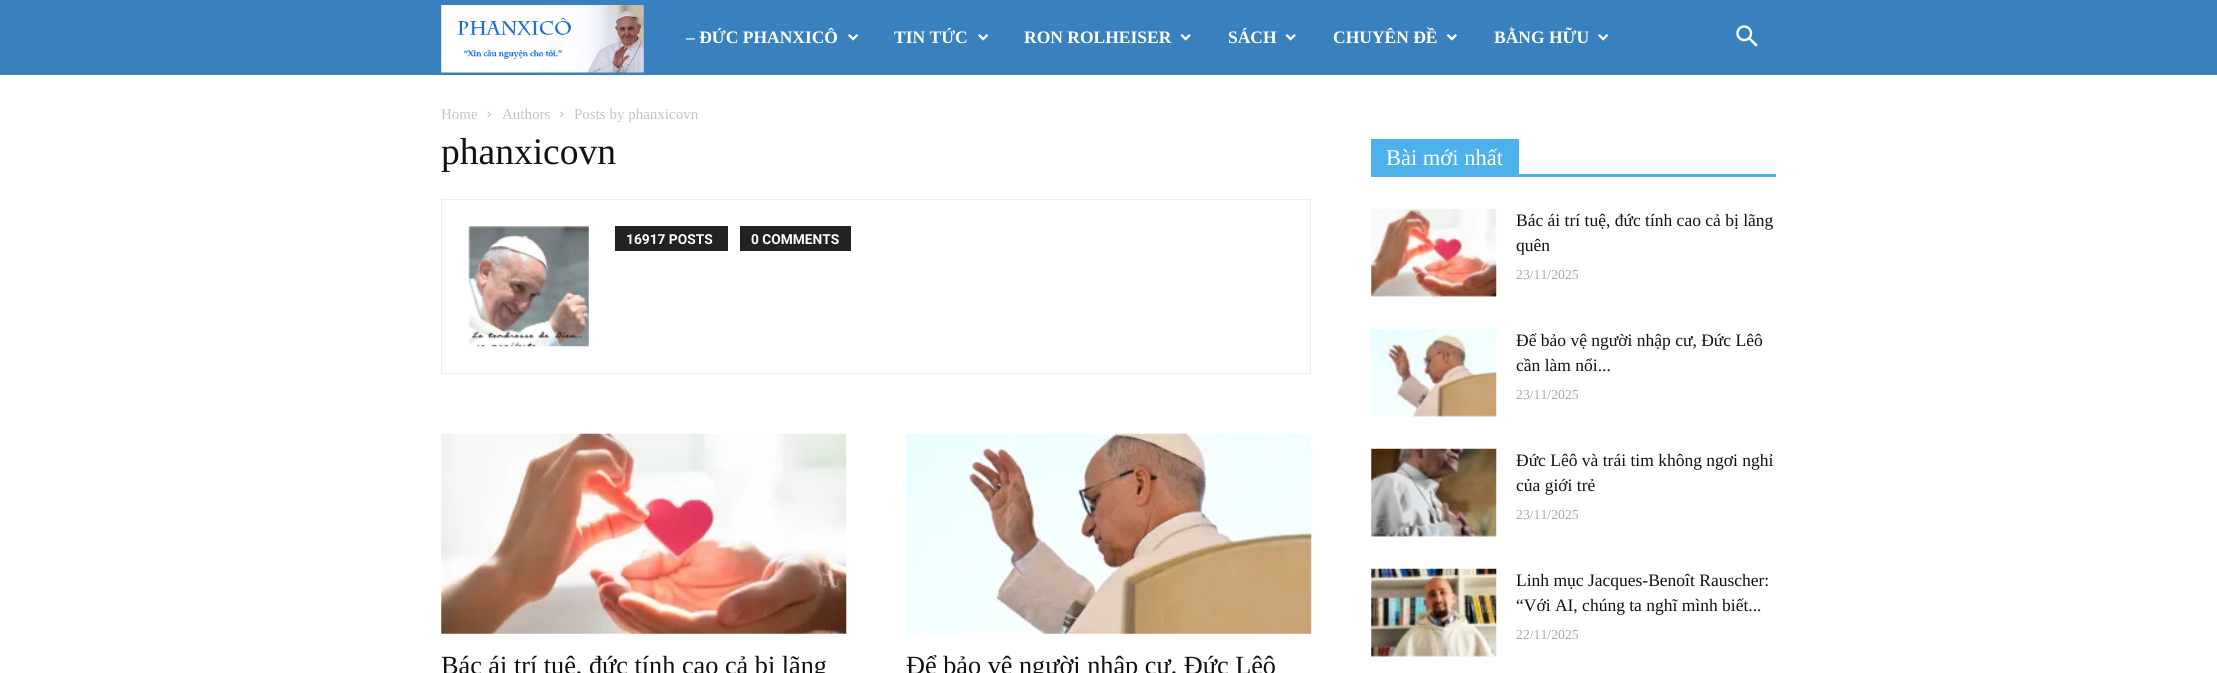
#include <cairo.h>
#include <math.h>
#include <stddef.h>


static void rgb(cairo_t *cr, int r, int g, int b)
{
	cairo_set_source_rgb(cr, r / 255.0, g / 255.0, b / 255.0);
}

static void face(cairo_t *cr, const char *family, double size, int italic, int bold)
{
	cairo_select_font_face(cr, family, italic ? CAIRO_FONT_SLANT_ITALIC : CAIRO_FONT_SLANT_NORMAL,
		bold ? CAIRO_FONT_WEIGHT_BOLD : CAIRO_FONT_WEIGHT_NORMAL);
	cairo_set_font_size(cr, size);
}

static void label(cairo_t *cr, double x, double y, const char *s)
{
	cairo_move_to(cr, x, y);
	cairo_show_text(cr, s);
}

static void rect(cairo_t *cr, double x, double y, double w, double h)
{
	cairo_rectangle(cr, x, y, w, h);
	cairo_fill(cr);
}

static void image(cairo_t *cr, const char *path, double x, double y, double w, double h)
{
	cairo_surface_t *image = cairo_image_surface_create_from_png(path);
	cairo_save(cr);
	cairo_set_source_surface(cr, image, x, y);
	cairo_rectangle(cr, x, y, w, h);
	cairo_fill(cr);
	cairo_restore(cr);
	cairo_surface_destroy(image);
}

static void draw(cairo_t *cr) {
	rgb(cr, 255, 255, 255);
	cairo_paint(cr);
	rgb(cr, 57, 128, 191);
	rect(cr, 0, 0, 2217, 75);
	image(cr, "image0.png", 441, 5, 203, 68);
	face(cr, "Liberation Serif", 17.5, 0, 1);
	rgb(cr, 255, 255, 255);
	label(cr, 686, 43, "– ĐỨC PHANXICÔ");
	image(cr, "image1.png", 848, 34, 11, 7);
	label(cr, 894, 43, "TIN TỨC");
	image(cr, "image1.png", 978, 34, 11, 7);
	label(cr, 1024, 43, "RON ROLHEISER");
	image(cr, "image2.png", 1180, 34, 11, 7);
	label(cr, 1228, 43, "SÁCH");
	image(cr, "image2.png", 1285, 34, 11, 7);
	label(cr, 1333, 43, "CHUYÊN ĐỀ");
	image(cr, "image3.png", 1446, 34, 11, 7);
	label(cr, 1494, 43, "BẰNG HỮU");
	image(cr, "image1.png", 1598, 34, 11, 7);
	image(cr, "image4.png", 1736, 25, 22, 22);
	face(cr, "Liberation Serif", 15, 0, 0);
	rgb(cr, 195, 195, 195);
	label(cr, 441, 119, "Home");
	image(cr, "image5.png", 487, 111, 4, 7);
	label(cr, 502, 119, "Authors");
	image(cr, "image6.png", 560, 111, 4, 7);
	label(cr, 574, 119, "Posts by phanxicovn");
	face(cr, "Liberation Serif", 37.5, 0, 0);
	rgb(cr, 17, 17, 17);
	label(cr, 441, 164, "phanxicovn");
	cairo_rectangle(cr, 441.5, 199.5, 869, 174);
	rgb(cr, 237, 237, 237);
	cairo_set_line_width(cr, 1);
	cairo_stroke(cr);
	image(cr, "image7.png", 468, 226, 121, 121);
	rgb(cr, 34, 34, 34);
	rect(cr, 615, 226, 113, 25);
	face(cr, "Roboto", 13.75, 0, 1);
	rgb(cr, 255, 255, 255);
	label(cr, 626, 244, "16917 POSTS");
	rgb(cr, 34, 34, 34);
	rect(cr, 740, 226, 111, 25);
	rgb(cr, 255, 255, 255);
	label(cr, 751, 244, "0 COMMENTS");
	image(cr, "image8.png", 441, 433, 406, 201);
	face(cr, "Liberation Serif", 26.25, 0, 0);
	rgb(cr, 17, 17, 17);
	label(cr, 441, 674, "Bác ái trí tuệ, đức tính cao cả bị lãng");
	image(cr, "image9.png", 906, 433, 406, 201);
	label(cr, 906, 674, "Để bảo vệ người nhập cư, Đức Lêô");
	rgb(cr, 77, 178, 236);
	rect(cr, 1371, 174, 405, 3);
	rect(cr, 1371, 139, 148, 35);
	face(cr, "Liberation Serif", 22.5, 0, 0);
	rgb(cr, 255, 255, 255);
	label(cr, 1386, 165, "Bài mới nhất");
	image(cr, "image10.png", 1371, 208, 126, 89);
	face(cr, "Liberation Serif", 17.5, 0, 0);
	rgb(cr, 17, 17, 17);
	label(cr, 1516, 226, "Bác ái trí tuệ, đức tính cao cả bị lãng");
	label(cr, 1516, 251, "quên");
	face(cr, "Liberation Serif", 13.75, 0, 0);
	rgb(cr, 170, 170, 170);
	label(cr, 1516, 279, "23/11/2025");
	image(cr, "image11.png", 1371, 328, 126, 89);
	face(cr, "Liberation Serif", 17.5, 0, 0);
	rgb(cr, 17, 17, 17);
	label(cr, 1516, 346, "Để bảo vệ người nhập cư, Đức Lêô");
	label(cr, 1516, 371, "cần làm nổi...");
	face(cr, "Liberation Serif", 13.75, 0, 0);
	rgb(cr, 170, 170, 170);
	label(cr, 1516, 399, "23/11/2025");
	image(cr, "image12.png", 1371, 448, 126, 89);
	face(cr, "Liberation Serif", 17.5, 0, 0);
	rgb(cr, 17, 17, 17);
	label(cr, 1516, 466, "Đức Lêô và trái tim không ngơi nghỉ");
	label(cr, 1516, 491, "của giới trẻ");
	face(cr, "Liberation Serif", 13.75, 0, 0);
	rgb(cr, 170, 170, 170);
	label(cr, 1516, 519, "23/11/2025");
	image(cr, "image13.png", 1371, 568, 126, 89);
	face(cr, "Liberation Serif", 17.5, 0, 0);
	rgb(cr, 17, 17, 17);
	label(cr, 1516, 586, "Linh mục Jacques-Benoît Rauscher:");
	label(cr, 1516, 611, "“Với AI, chúng ta nghĩ mình biết...");
	face(cr, "Liberation Serif", 13.75, 0, 0);
	rgb(cr, 170, 170, 170);
	label(cr, 1516, 639, "22/11/2025");
}

int main(void) {
	cairo_surface_t *surface = cairo_image_surface_create(CAIRO_FORMAT_RGB24, 2217, 673);
	cairo_t *cr = cairo_create(surface);
	cairo_font_options_t *options = cairo_font_options_create();
	cairo_font_options_set_hint_metrics(options, CAIRO_HINT_METRICS_OFF);
	cairo_font_options_set_hint_style(options, CAIRO_HINT_STYLE_NONE);
	cairo_set_font_options(cr, options);
	cairo_set_miter_limit(cr, 4);
	draw(cr);
	cairo_surface_write_to_png(surface, "render.png");
	cairo_font_options_destroy(options);
	cairo_destroy(cr);
	cairo_surface_destroy(surface);
	return 0;
}
